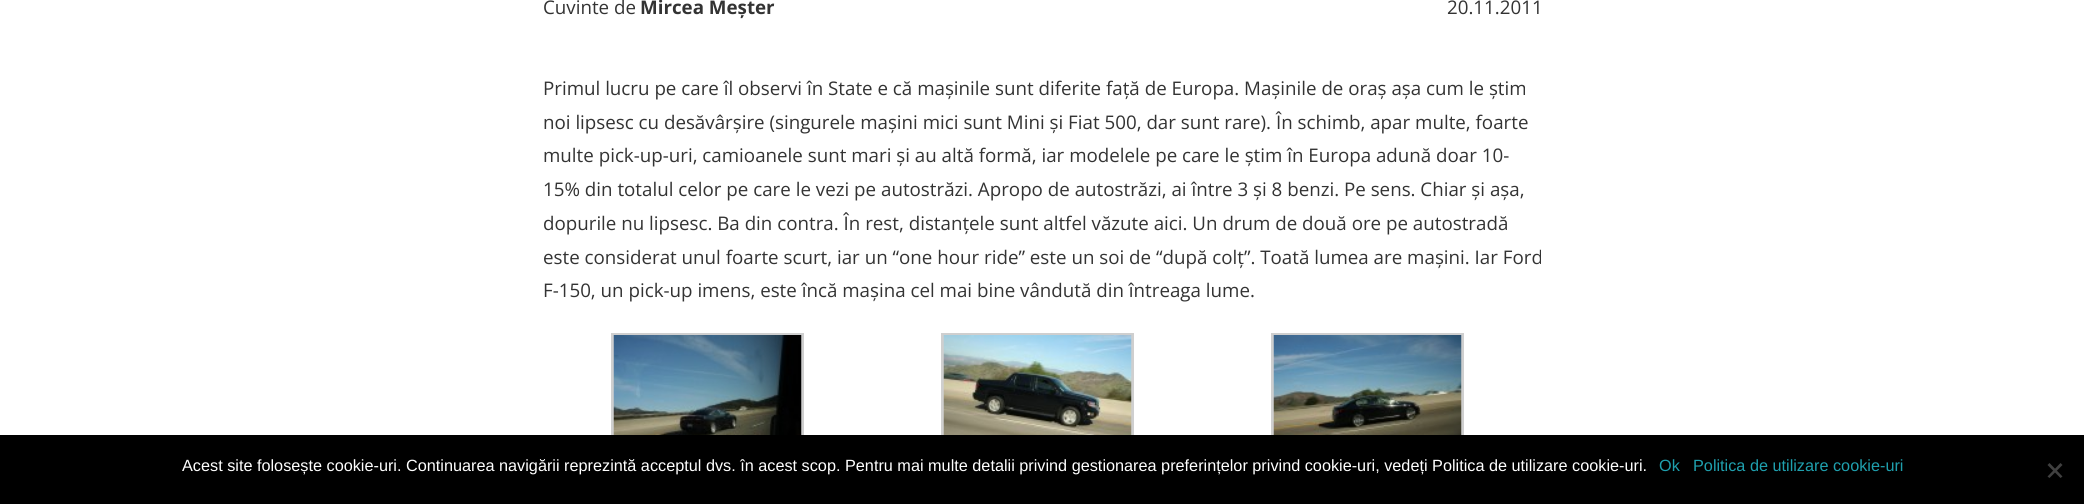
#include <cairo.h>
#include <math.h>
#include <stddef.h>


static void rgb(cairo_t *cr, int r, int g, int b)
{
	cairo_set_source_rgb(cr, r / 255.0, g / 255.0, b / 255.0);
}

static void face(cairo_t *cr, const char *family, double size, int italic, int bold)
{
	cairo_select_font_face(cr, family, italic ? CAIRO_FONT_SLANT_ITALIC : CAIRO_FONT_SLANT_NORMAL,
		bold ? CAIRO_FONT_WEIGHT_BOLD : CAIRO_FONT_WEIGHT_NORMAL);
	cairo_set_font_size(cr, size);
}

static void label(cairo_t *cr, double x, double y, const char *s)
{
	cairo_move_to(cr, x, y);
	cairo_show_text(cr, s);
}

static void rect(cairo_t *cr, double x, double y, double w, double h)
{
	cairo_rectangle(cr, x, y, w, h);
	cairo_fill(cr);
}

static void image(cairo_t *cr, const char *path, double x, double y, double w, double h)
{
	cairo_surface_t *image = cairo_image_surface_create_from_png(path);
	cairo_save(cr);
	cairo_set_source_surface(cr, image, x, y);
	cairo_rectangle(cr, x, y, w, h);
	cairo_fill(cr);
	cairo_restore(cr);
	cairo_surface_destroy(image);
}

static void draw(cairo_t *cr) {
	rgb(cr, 255, 255, 255);
	cairo_paint(cr);
	face(cr, "Open Sans", 18.75, 0, 0);
	rgb(cr, 51, 51, 51);
	label(cr, 543, 14, "Cuvinte de");
	face(cr, "Open Sans", 18.75, 0, 1);
	label(cr, 640, 14, "Mircea Meșter");
	face(cr, "Open Sans", 18.75, 0, 0);
	label(cr, 1447, 14, "20.11.2011");
	label(cr, 543, 95, "Primul lucru pe care îl observi în State e că mașinile sunt diferite față de Europa. Mașinile de oraș așa cum le știm");
	label(cr, 543, 129, "noi lipsesc cu desăvârșire (singurele mașini mici sunt Mini și Fiat 500, dar sunt rare). În schimb, apar multe, foarte");
	label(cr, 543, 162, "multe pick-up-uri, camioanele sunt mari și au altă formă, iar modelele pe care le știm în Europa adună doar 10-");
	label(cr, 543, 196, "15% din totalul celor pe care le vezi pe autostrăzi. Apropo de autostrăzi, ai între 3 și 8 benzi. Pe sens. Chiar și așa,");
	label(cr, 543, 230, "dopurile nu lipsesc. Ba din contra. În rest, distanțele sunt altfel văzute aici. Un drum de două ore pe autostradă");
	label(cr, 543, 264, "este considerat unul foarte scurt, iar un “one hour ride” este un soi de “după colț”. Toată lumea are mașini. Iar Ford");
	label(cr, 543, 297, "F-150, un pick-up imens, este încă mașina cel mai bine vândută din întreaga lume.");
	cairo_rectangle(cr, 612.5, 334.5, 190, 127);
	rgb(cr, 207, 207, 207);
	cairo_set_line_width(cr, 3);
	cairo_stroke(cr);
	image(cr, "image0.png", 613, 335, 189, 100);
	cairo_rectangle(cr, 942.5, 334.5, 190, 127);
	cairo_stroke(cr);
	image(cr, "image1.png", 943, 335, 189, 100);
	cairo_rectangle(cr, 1272.5, 334.5, 190, 127);
	cairo_stroke(cr);
	image(cr, "image2.png", 1273, 335, 189, 100);
	rgb(cr, 0, 0, 0);
	rect(cr, 0, 435, 2084, 69);
	face(cr, "Liberation Sans", 16.25, 0, 0);
	rgb(cr, 255, 255, 255);
	label(cr, 182, 471, "Acest site folosește cookie-uri. Continuarea navigării reprezintă acceptul dvs. în acest scop. Pentru mai multe detalii privind gestionarea preferințelor privind cookie-uri, vedeți Politica de utilizare cookie-uri.");
	rgb(cr, 31, 160, 174);
	label(cr, 1659, 471, "Ok");
	label(cr, 1693, 471, "Politica de utilizare cookie-uri");
	rgb(cr, 64, 64, 64);
	cairo_new_path(cr);
	cairo_move_to(cr, 2060.5, 463);
	cairo_line_to(cr, 2062.5, 465);
	cairo_line_to(cr, 2049.5, 478);
	cairo_line_to(cr, 2047.5, 476.5);
	cairo_close_path(cr);
	cairo_fill(cr);
	cairo_new_path(cr);
	cairo_move_to(cr, 2047.5, 465);
	cairo_line_to(cr, 2049.5, 463);
	cairo_line_to(cr, 2062.5, 476.5);
	cairo_line_to(cr, 2060.5, 478);
	cairo_close_path(cr);
	cairo_fill(cr);
}

int main(void) {
	cairo_surface_t *surface = cairo_image_surface_create(CAIRO_FORMAT_RGB24, 2084, 504);
	cairo_t *cr = cairo_create(surface);
	cairo_font_options_t *options = cairo_font_options_create();
	cairo_font_options_set_hint_metrics(options, CAIRO_HINT_METRICS_OFF);
	cairo_font_options_set_hint_style(options, CAIRO_HINT_STYLE_NONE);
	cairo_set_font_options(cr, options);
	cairo_set_miter_limit(cr, 4);
	draw(cr);
	cairo_surface_write_to_png(surface, "render.png");
	cairo_font_options_destroy(options);
	cairo_destroy(cr);
	cairo_surface_destroy(surface);
	return 0;
}
